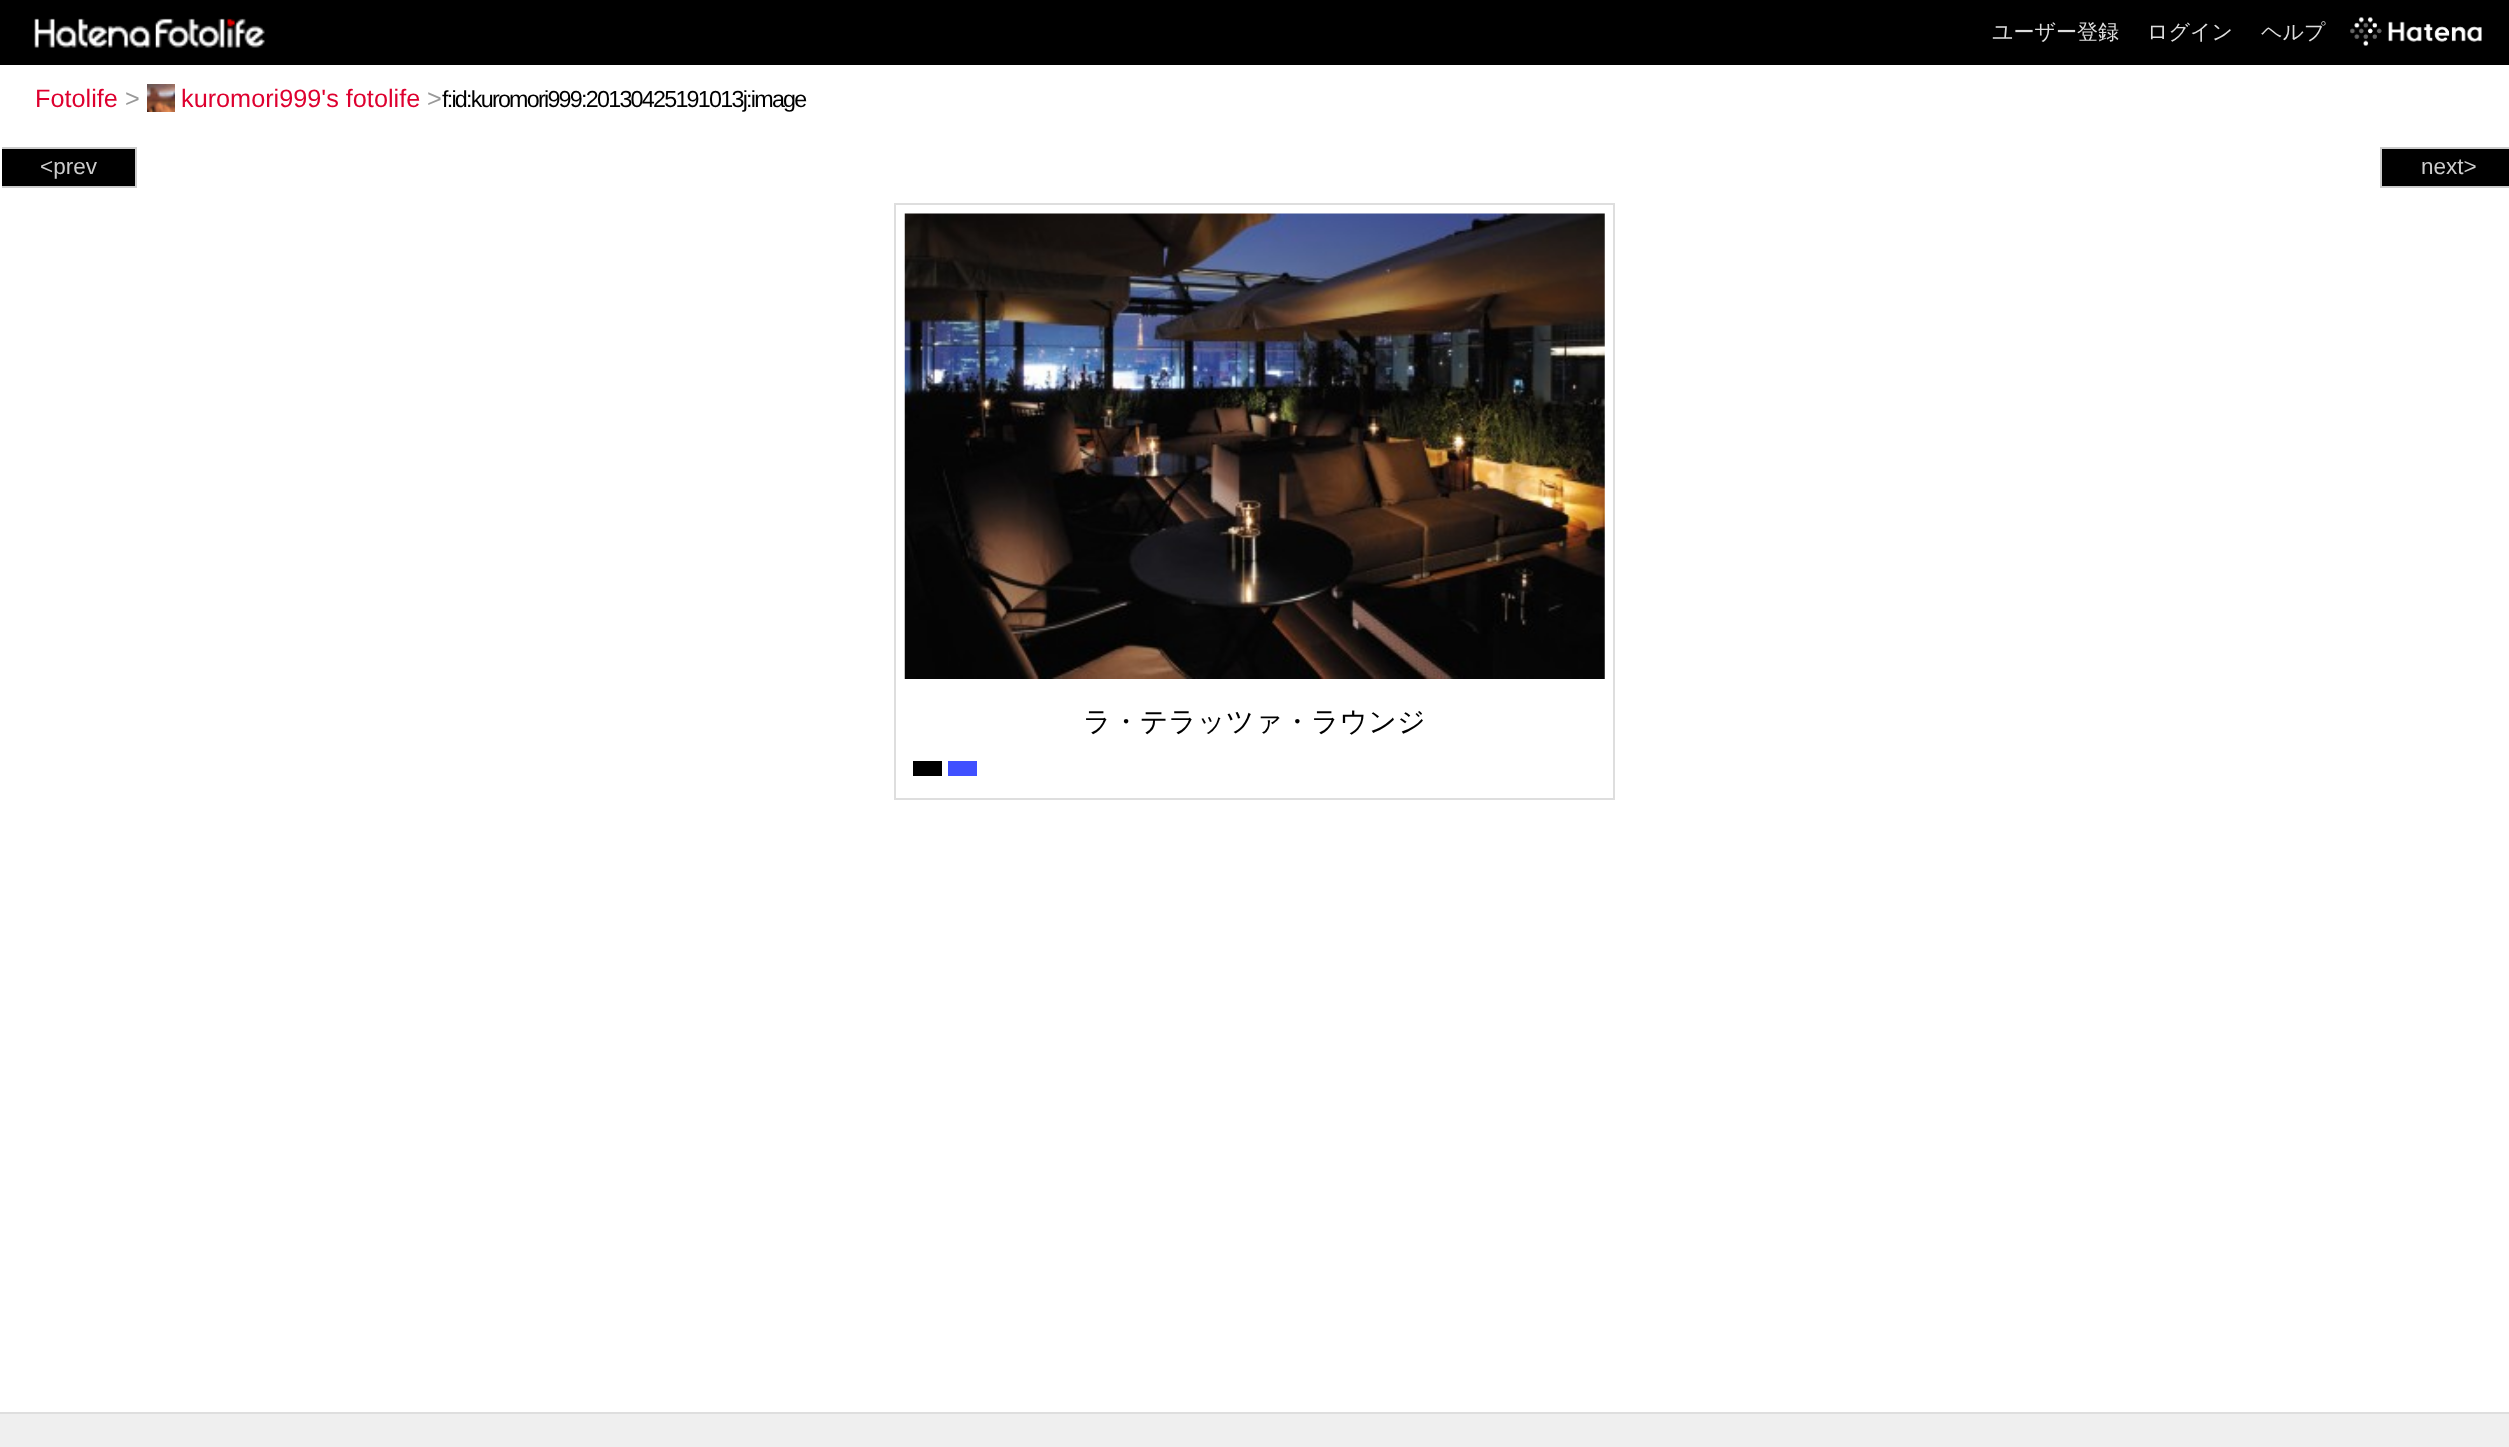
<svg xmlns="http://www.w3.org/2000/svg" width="2509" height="1447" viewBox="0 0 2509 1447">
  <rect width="100%" height="100%" fill="#efefef"/>
  <rect x="0" y="0" width="2509" height="65" fill="#000000"/>
  <image x="34" y="18" width="117" height="30" href="img1.png"/>
  <image x="155" y="18" width="110" height="30" href="img2.png"/>
  <text x="1992" y="39" font-family="WenQuanYi Zen Hei" font-size="21" font-weight="500" fill="#dddddd">ユーザー登録</text>
  <text x="2147" y="39" font-family="WenQuanYi Zen Hei" font-size="21" font-weight="500" fill="#dddddd">ログイン</text>
  <text x="2261" y="39" font-family="WenQuanYi Zen Hei" font-size="21" font-weight="500" fill="#dddddd">ヘルプ</text>
  <image x="2350" y="17" width="132" height="29" href="img3.png"/>
  <rect x="0" y="65" width="2509" height="1347" fill="#ffffff"/>
  <text x="35" y="107" font-family="Liberation Sans" font-size="25.25" fill="#de002f">Fotolife</text>
  <text x="125" y="107" font-family="Liberation Sans" font-size="25.25" fill="#999999">&gt;</text>
  <image x="147" y="84" width="28" height="28" href="img4.png"/>
  <text x="181" y="107" font-family="Liberation Sans" font-size="25.25" fill="#de002f">kuromori999's fotolife</text>
  <text x="427" y="107" font-family="Liberation Sans" font-size="25.25" fill="#999999">&gt;</text>
  <text x="442" y="107" font-family="Liberation Sans" font-size="23.3" letter-spacing="-1.75" fill="#000000">f:id:kuromori999:20130425191013j:image</text>
  <rect x="0" y="1412" width="2509" height="2" fill="#dedede"/>
  <rect x="2" y="149" width="133" height="37" fill="#000000"/>
  <rect x="2" y="147" width="135" height="2" fill="#cccccc"/>
  <rect x="135" y="147" width="2" height="40" fill="#cccccc"/>
  <rect x="2" y="186" width="135" height="2" fill="#cccccc"/>
  <text x="40" y="174" font-family="Liberation Sans" font-size="22.5" fill="#cccccc">&lt;prev</text>
  <rect x="2382" y="149" width="127" height="37" fill="#000000"/>
  <rect x="2380" y="147" width="129" height="2" fill="#cccccc"/>
  <rect x="2380" y="186" width="129" height="2" fill="#cccccc"/>
  <rect x="2380" y="147" width="2" height="40" fill="#cccccc"/>
  <text x="2421" y="174" font-family="Liberation Sans" font-size="22.5" fill="#cccccc">next&gt;</text>
  <rect x="895" y="204" width="719" height="595" fill="none" stroke="#dedede" stroke-width="2"/>
  <image x="904" y="213" width="701" height="466" href="img5.png"/>
  <text x="1083" y="731" font-family="WenQuanYi Zen Hei" font-size="28" font-weight="500" fill="#000000">ラ・テラッツァ・ラウンジ</text>
  <rect x="913" y="761" width="29" height="15" fill="#000000"/>
  <rect x="948" y="761" width="29" height="15" fill="#4050ff"/>
</svg>
